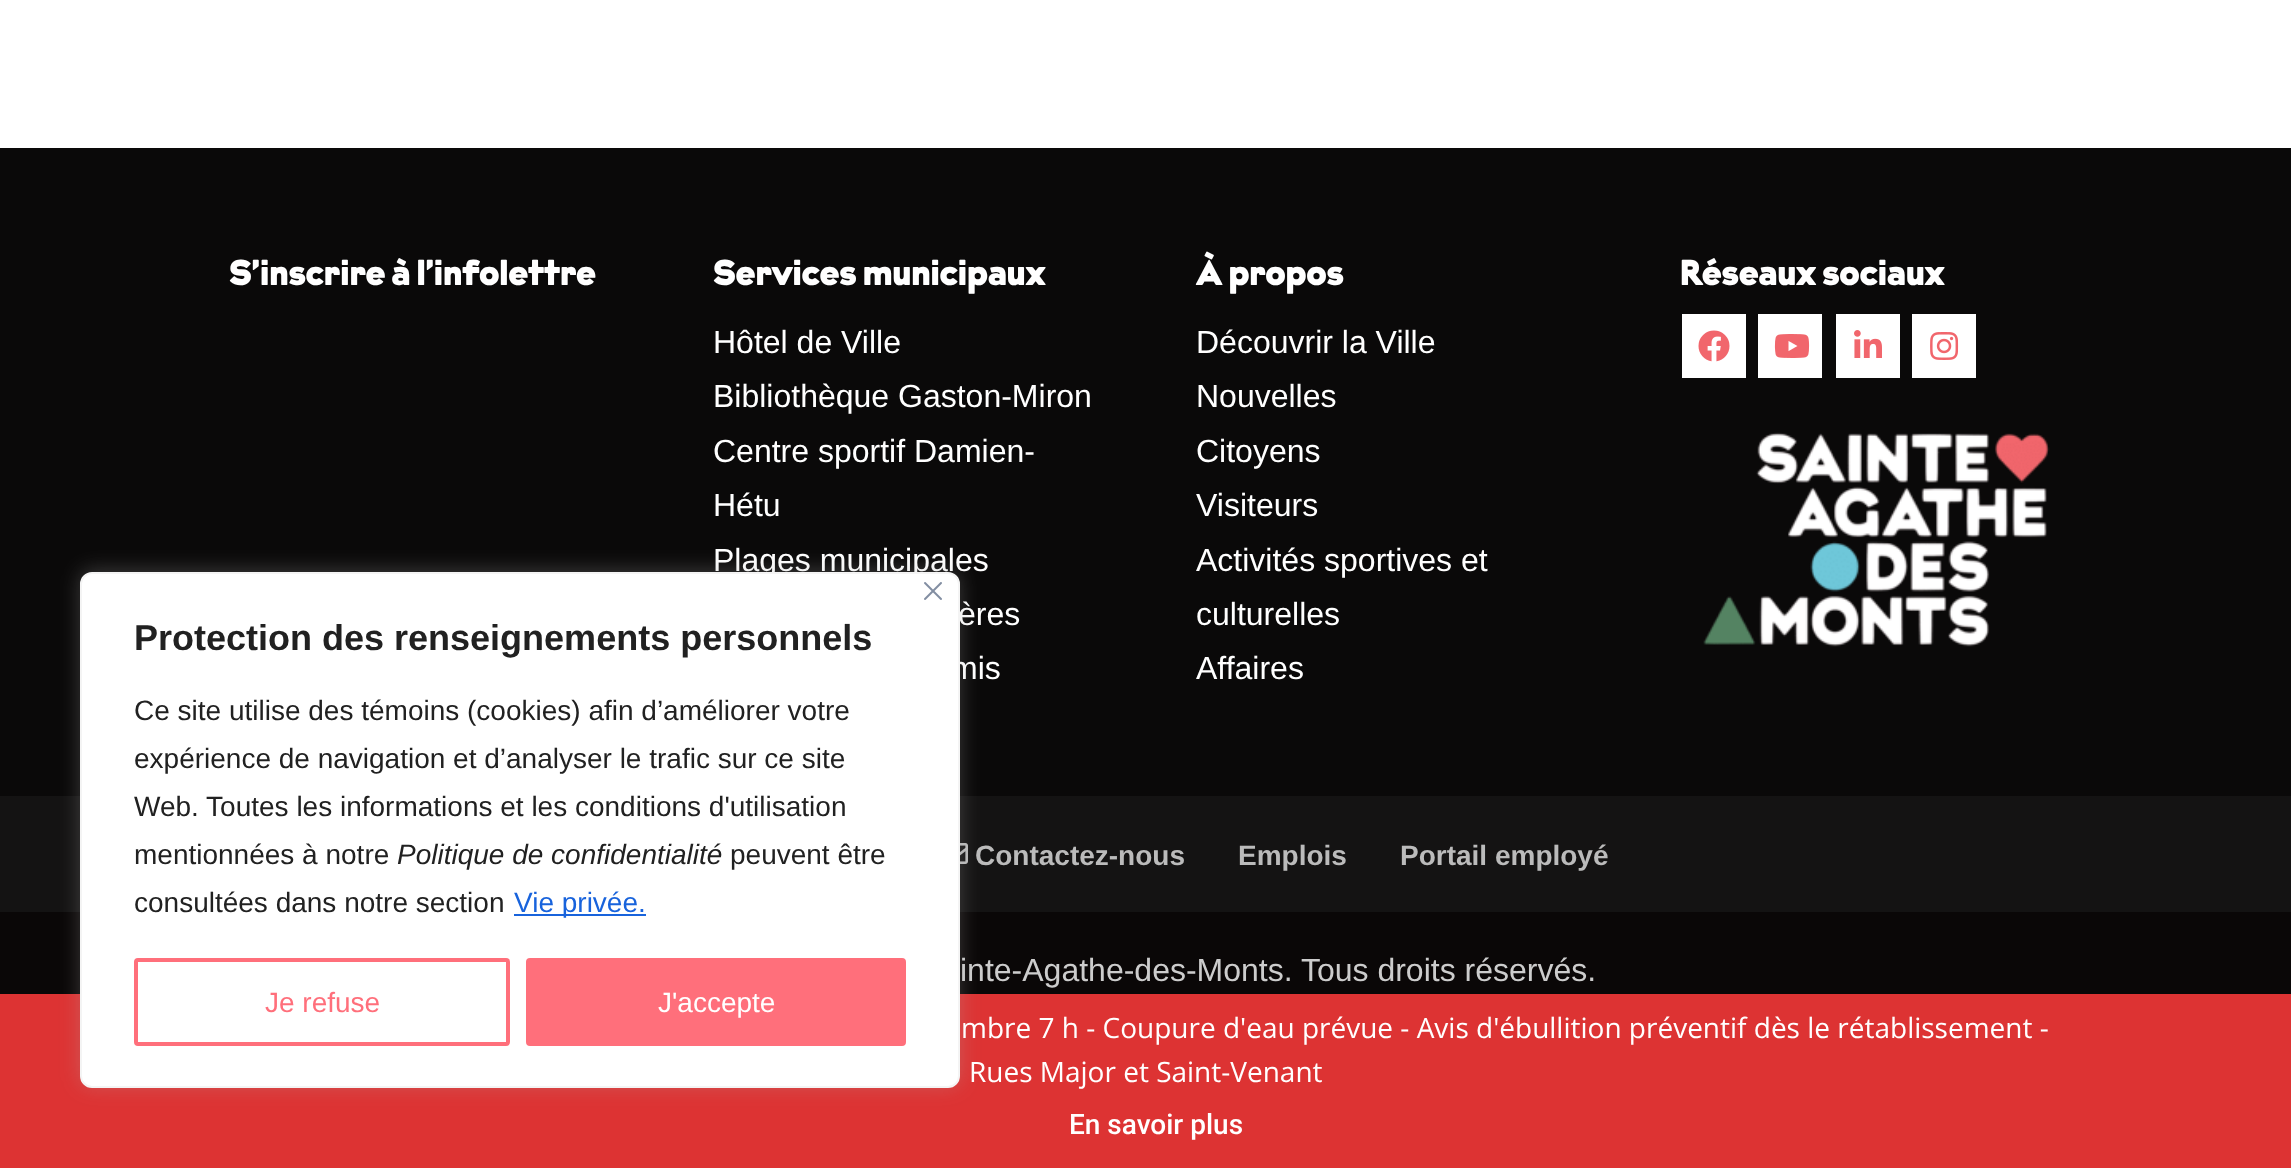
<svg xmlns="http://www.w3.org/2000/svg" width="2291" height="1168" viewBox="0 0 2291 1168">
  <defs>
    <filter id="blur1" x="-50%" y="-200%" width="200%" height="500%"><feGaussianBlur stdDeviation="10"/></filter>
  </defs>
  <rect width="100%" height="100%" fill="#ffffff"/>
  <rect x="0" y="148" width="2291" height="648" fill="#0a0909"/>
  <text x="229" y="285" font-family="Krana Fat" font-size="36" font-weight="900" fill="#ffffff">S’inscrire à l’infolettre</text>
  <text x="713" y="285" font-family="Krana Fat" font-size="36" font-weight="900" fill="#ffffff">Services municipaux</text>
  <text x="713" y="353" font-family="Liberation Sans" font-size="32" fill="#ffffff">Hôtel de Ville</text>
  <text x="713" y="407" font-family="Liberation Sans" font-size="32" fill="#ffffff">Bibliothèque Gaston-Miron</text>
  <text x="713" y="462" font-family="Liberation Sans" font-size="32" fill="#ffffff">Centre sportif Damien-</text>
  <text x="713" y="516" font-family="Liberation Sans" font-size="32" fill="#ffffff">Hétu</text>
  <text x="713" y="571" font-family="Liberation Sans" font-size="32" fill="#ffffff">Plages municipales</text>
  <text x="958" y="625" font-family="Liberation Sans" font-size="32" fill="#ffffff">ères</text>
  <text x="951" y="679" font-family="Liberation Sans" font-size="32" fill="#ffffff">mis</text>
  <text x="1196" y="285" font-family="Krana Fat" font-size="36" font-weight="900" fill="#ffffff">À propos</text>
  <text x="1196" y="353" font-family="Liberation Sans" font-size="32" fill="#ffffff">Découvrir la Ville</text>
  <text x="1196" y="407" font-family="Liberation Sans" font-size="32" fill="#ffffff">Nouvelles</text>
  <text x="1196" y="462" font-family="Liberation Sans" font-size="32" fill="#ffffff">Citoyens</text>
  <text x="1196" y="516" font-family="Liberation Sans" font-size="32" fill="#ffffff">Visiteurs</text>
  <text x="1196" y="571" font-family="Liberation Sans" font-size="32" fill="#ffffff">Activités sportives et</text>
  <text x="1196" y="625" font-family="Liberation Sans" font-size="32" fill="#ffffff">culturelles</text>
  <text x="1196" y="679" font-family="Liberation Sans" font-size="32" fill="#ffffff">Affaires</text>
  <text x="1680" y="285" font-family="Krana Fat" font-size="36" font-weight="900" fill="#ffffff">Réseaux sociaux</text>
  <rect x="1682" y="314" width="64" height="64" fill="#ffffff"/>
  <image x="1698" y="330" width="32" height="32" href="img1.png"/>
  <rect x="1758" y="314" width="64" height="64" fill="#ffffff"/>
  <image x="1774" y="334" width="36" height="24" href="img2.png"/>
  <rect x="1836" y="314" width="64" height="64" fill="#ffffff"/>
  <image x="1854" y="330" width="28" height="28" href="img3.png"/>
  <rect x="1912" y="314" width="64" height="64" fill="#ffffff"/>
  <image x="1930" y="332" width="29" height="28" href="img4.png"/>
  <image x="1703" y="432" width="347" height="215" href="img5.png"/>
  <rect x="0" y="796" width="2291" height="116" fill="#141313"/>
  <image x="960" y="843" width="8" height="21" href="img6.png"/>
  <text x="975" y="865" font-family="Liberation Sans" font-size="28" font-weight="bold" fill="#bbbbbb">Contactez-nous</text>
  <text x="1238" y="865" font-family="Liberation Sans" font-size="28" font-weight="bold" fill="#bbbbbb">Emplois</text>
  <text x="1400" y="865" font-family="Liberation Sans" font-size="28" font-weight="bold" fill="#bbbbbb">Portail employé</text>
  <rect x="0" y="912" width="2291" height="82" fill="#0a0707"/>
  <text x="960" y="981" font-family="Liberation Sans" font-size="32" fill="#cccccc">inte-Agathe-des-Monts. Tous droits réservés.</text>
  <rect x="0" y="994" width="2291" height="174" fill="#dd3333"/>
  <rect x="80" y="570" width="880" height="516" rx="12" fill="#acabab" fill-opacity="0.3" filter="url(#blur1)"/>
  <rect x="81" y="573" width="878" height="514" rx="11" fill="#ffffff" stroke="#f4f4f4" stroke-width="2"/>
  <image x="924" y="582" width="18" height="18" href="img7.png"/>
  <text x="134" y="650" font-family="Liberation Sans" font-size="36" font-weight="bold" fill="#212121">Protection des renseignements personnels</text>
  <text x="134" y="720" font-family="Liberation Sans" font-size="28" fill="#212121">Ce site utilise des témoins (cookies) afin d’améliorer votre</text>
  <text x="134" y="768" font-family="Liberation Sans" font-size="28" fill="#212121">expérience de navigation et d’analyser le trafic sur ce site</text>
  <text x="134" y="816" font-family="Liberation Sans" font-size="28" fill="#212121">Web. Toutes les informations et les conditions d'utilisation</text>
  <text x="134" y="864" font-family="Liberation Sans" font-size="28" fill="#212121">mentionnées à notre</text>
  <text x="397" y="864" font-family="Liberation Sans" font-size="28" font-style="italic" fill="#212121">Politique de confidentialité</text>
  <text x="730" y="864" font-family="Liberation Sans" font-size="28" fill="#212121">peuvent être</text>
  <text x="134" y="912" font-family="Liberation Sans" font-size="28" fill="#212121">consultées dans notre section</text>
  <rect x="514" y="914" width="132" height="2" fill="#1863dc"/>
  <text x="514" y="912" font-family="Liberation Sans" font-size="28" fill="#1863dc">Vie privée.</text>
  <rect x="136" y="960" width="372" height="84" rx="2" fill="none" stroke="#ff6f7b" stroke-width="4"/>
  <text x="265" y="1012" font-family="Liberation Sans" font-size="28" fill="#ff6f7b">Je refuse</text>
  <rect x="528" y="960" width="376" height="84" rx="2" fill="#ff6f7b" stroke="#ff6f7b" stroke-width="4"/>
  <text x="658" y="1012" font-family="Liberation Sans" font-size="28" fill="#ffffff">J'accepte</text>
  <text x="961" y="1038" font-family="Open Sans" font-size="28" fill="#ffffff">mbre 7 h - Coupure d'eau prévue - Avis d'ébullition préventif dès le rétablissement -</text>
  <text x="969" y="1082" font-family="Open Sans" font-size="28" fill="#ffffff">Rues Major et Saint-Venant</text>
  <text x="1069" y="1134" font-family="Roboto" font-size="28" font-weight="500" fill="#ffffff">En savoir plus</text>
</svg>
